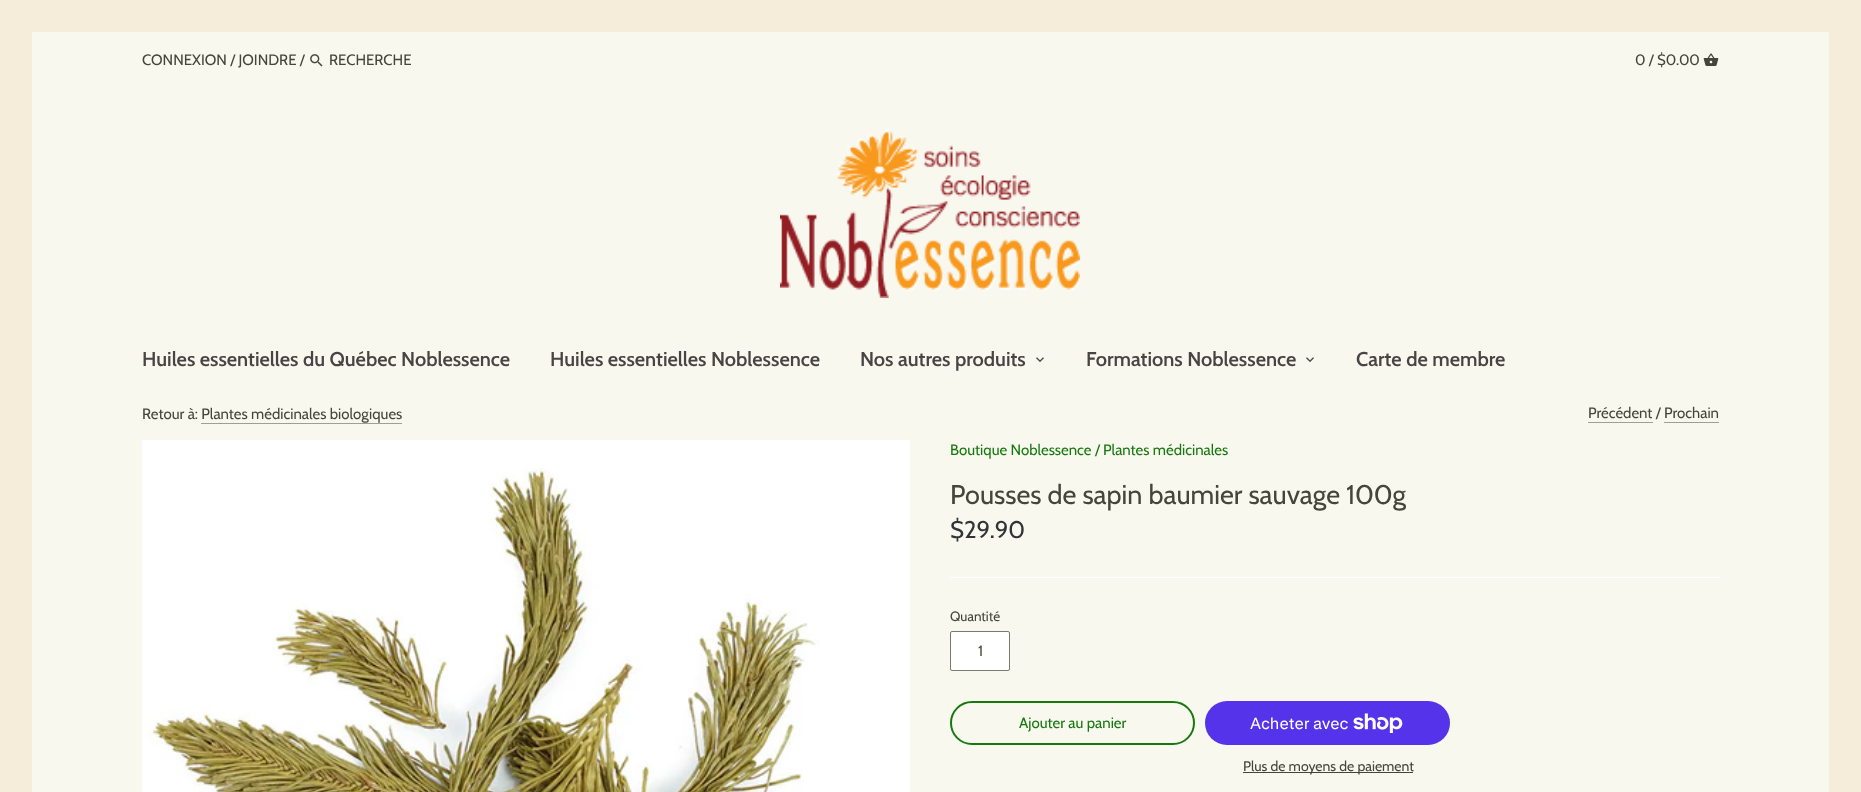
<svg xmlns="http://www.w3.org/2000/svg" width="1861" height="792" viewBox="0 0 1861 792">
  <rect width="100%" height="100%" fill="#f9f8ef"/>
  <rect x="16" y="16" width="1829" height="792" fill="none" stroke="#f5edd9" stroke-width="32"/>
  <text x="142" y="65" font-family="Cabin" font-size="15" fill="#444639">CONNEXION / JOINDRE /</text>
  <image x="310" y="54" width="13" height="13" href="img1.png"/>
  <text x="329" y="65" font-family="Cabin" font-size="15" fill="#444639">RECHERCHE</text>
  <text x="1635" y="65" font-family="Cabin" font-size="15" fill="#444639">0 / $0.00</text>
  <image x="1703" y="53" width="16" height="13" href="img2.png"/>
  <image x="780" y="129" width="300" height="169" href="img3.png"/>
  <text x="142" y="366" font-family="Cabin" font-size="20" font-weight="600" fill="#484444">Huiles essentielles du Québec Noblessence</text>
  <text x="550" y="366" font-family="Cabin" font-size="20" font-weight="600" fill="#484444">Huiles essentielles Noblessence</text>
  <text x="860" y="366" font-family="Cabin" font-size="20" font-weight="600" fill="#484444">Nos autres produits</text>
  <image x="1036" y="357" width="8" height="5" href="img4.png"/>
  <text x="1086" y="366" font-family="Cabin" font-size="20" font-weight="600" fill="#484444">Formations Noblessence</text>
  <image x="1306" y="357" width="8" height="5" href="img4.png"/>
  <text x="1356" y="366" font-family="Cabin" font-size="20" font-weight="600" fill="#484444">Carte de membre</text>
  <text x="142" y="419" font-family="Cabin" font-size="15" fill="#444639">Retour à: Plantes médicinales biologiques</text>
  <rect x="201" y="423" width="201" height="1" fill="#9f9f94"/>
  <text x="1588" y="418" font-family="Cabin" font-size="15" fill="#444639">Précédent / Prochain</text>
  <rect x="1588" y="422" width="65" height="1" fill="#9f9f94"/>
  <rect x="1664" y="422" width="55" height="1" fill="#9f9f94"/>
  <image x="142" y="440" width="768" height="352" href="img5.png"/>
  <rect x="950" y="577" width="769" height="1" fill="#ffffff"/>
  <text x="950" y="455" font-family="Cabin" font-size="15" fill="#177810">Boutique Noblessence / Plantes médicinales</text>
  <text x="950" y="504" font-family="Cabin" font-size="27" fill="#444639">Pousses de sapin baumier sauvage 100g</text>
  <text x="950" y="538" font-family="Cabin" font-size="24" fill="#303438">$29.90</text>
  <text x="950" y="621" font-family="Cabin" font-size="13.5" fill="#444639">Quantité</text>
  <rect x="950.5" y="631.5" width="59" height="39" rx="1.5" fill="#ffffff" stroke="#7a7b6f"/>
  <text x="978" y="656" font-family="Cabin" font-size="15" fill="#444639">1</text>
  <rect x="951" y="702" width="243" height="42" rx="21" fill="none" stroke="#177810" stroke-width="2"/>
  <text x="1019" y="728" font-family="Cabin" font-size="15" fill="#177810">Ajouter au panier</text>
  <rect x="1205" y="701" width="245" height="44" rx="22" fill="#5433eb"/>
  <text x="1250" y="729" font-family="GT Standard" font-size="16" fill="#ffffff">Acheter avec</text>
  <image x="1353" y="713" width="50" height="20" href="img6.png"/>
  <rect x="1243" y="772" width="170" height="1" fill="#444639"/>
  <text x="1243" y="771" font-family="Cabin" font-size="14" fill="#444639">Plus de moyens de paiement</text>
</svg>
